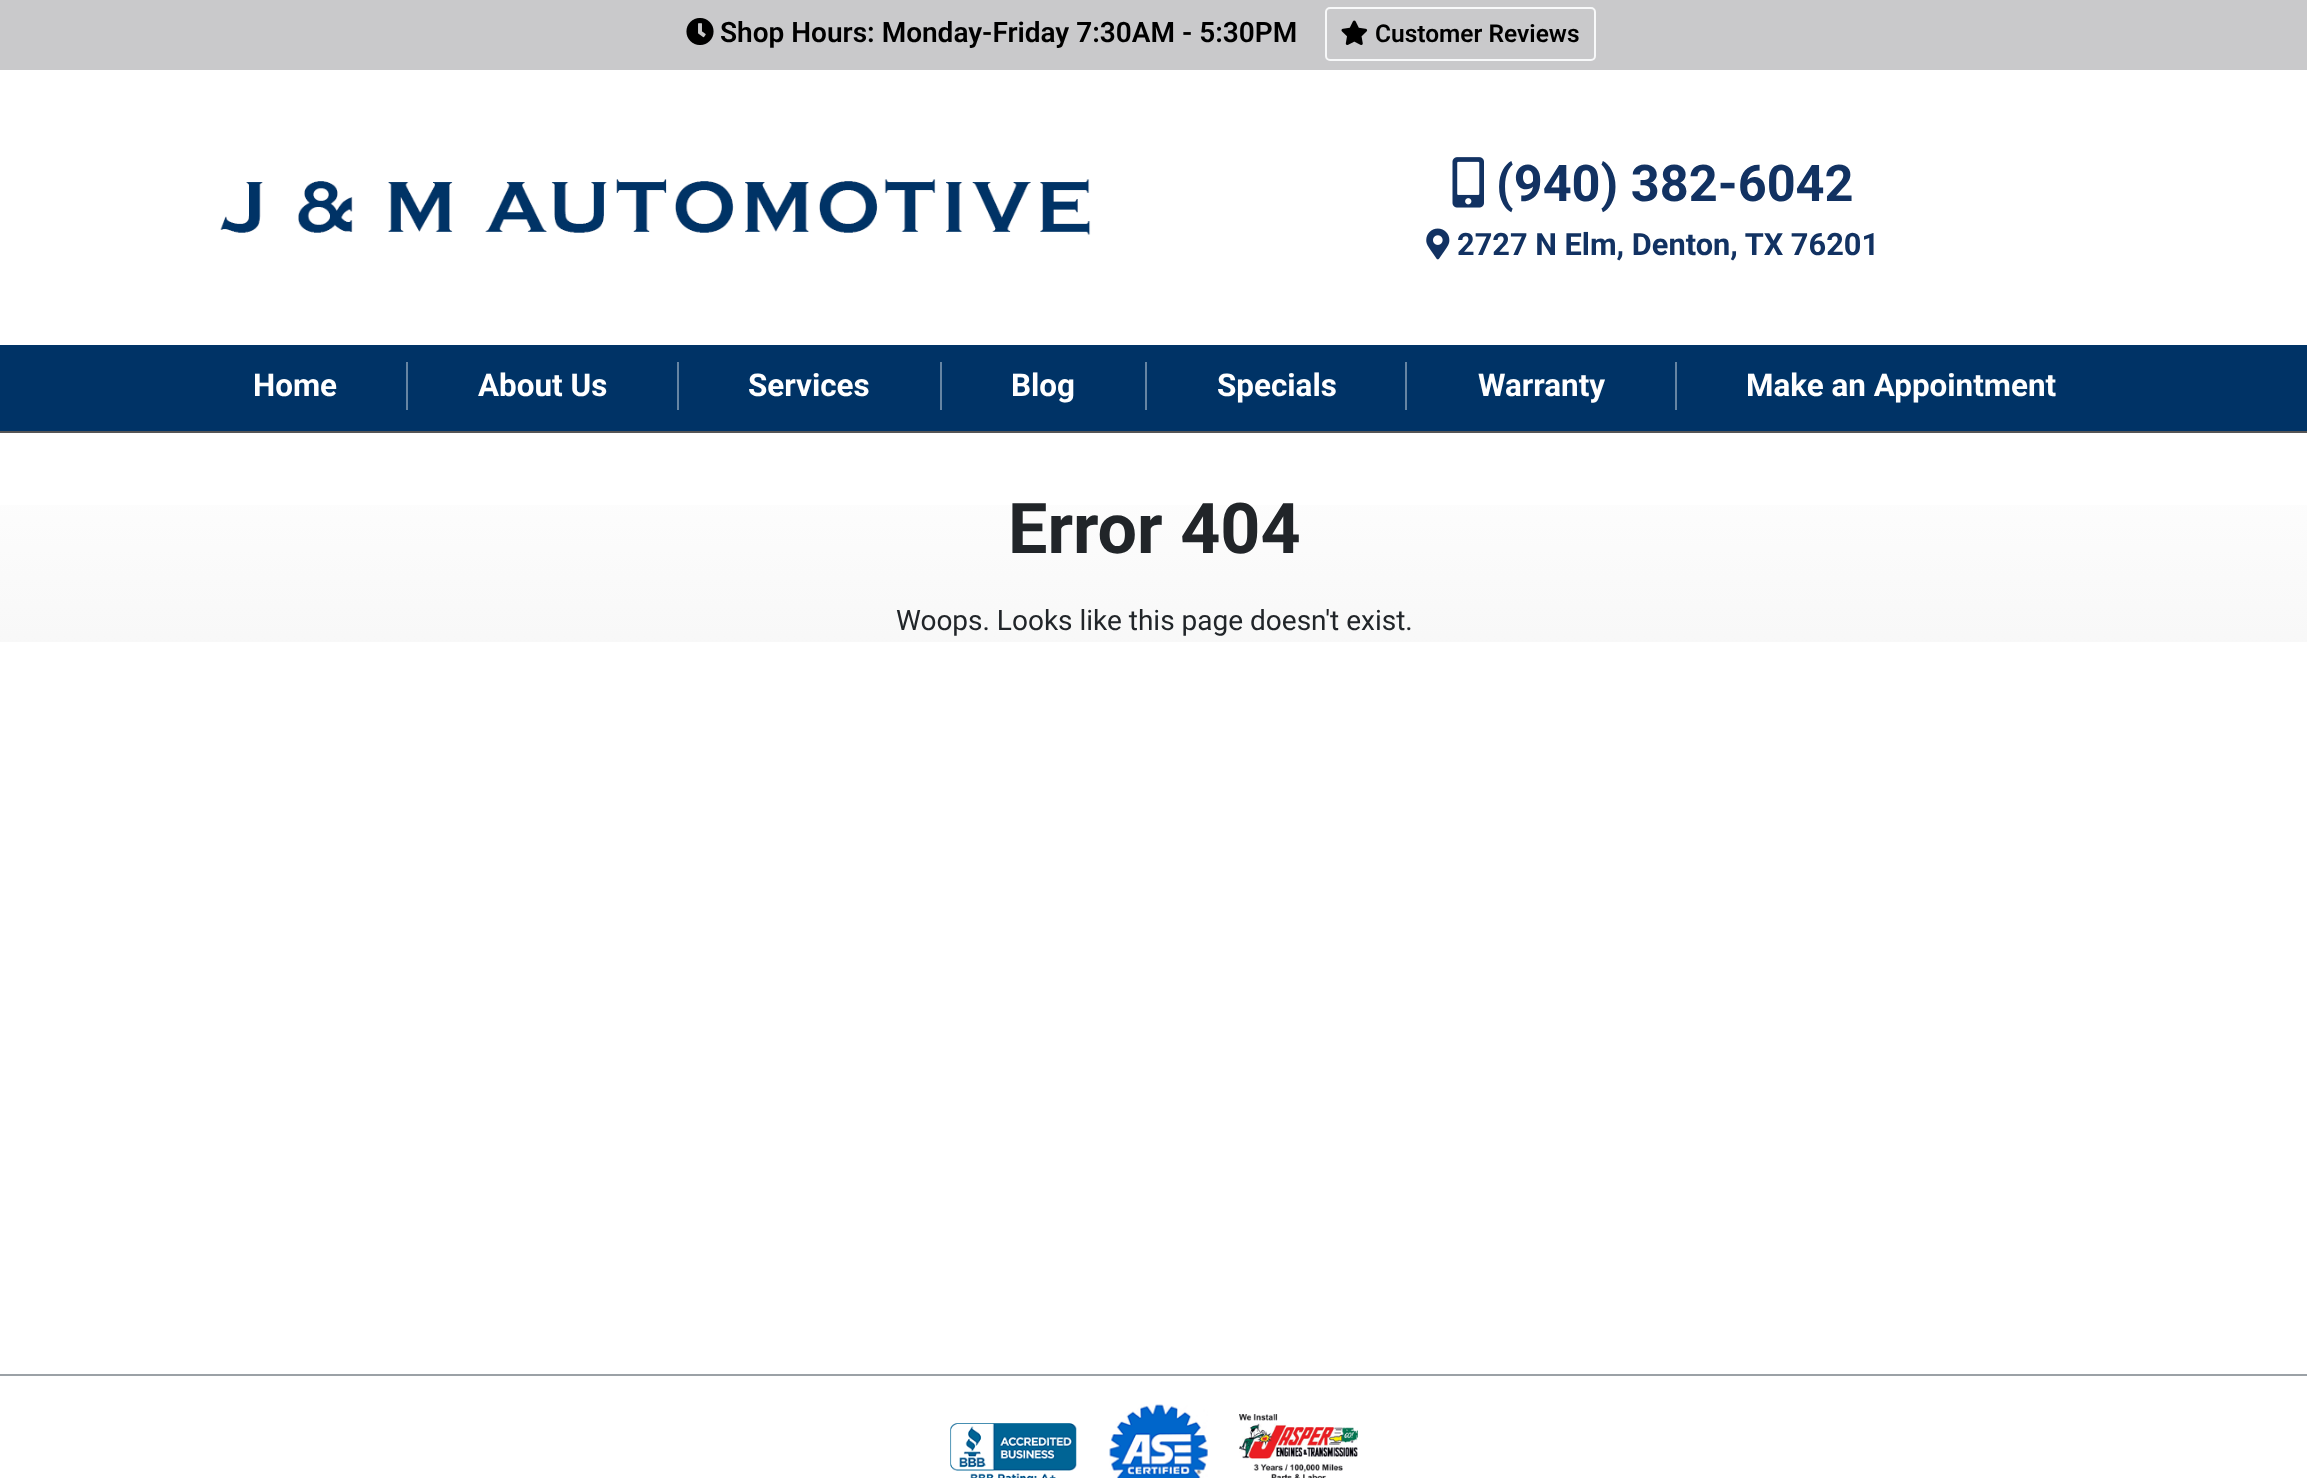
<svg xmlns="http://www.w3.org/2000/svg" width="2307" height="1478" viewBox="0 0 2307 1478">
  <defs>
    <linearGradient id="g1" gradientUnits="userSpaceOnUse" x1="1154" y1="432" x2="1154" y2="1132"><stop offset="0" stop-color="#ffffff"/><stop offset="1" stop-color="#e7e7e7"/></linearGradient>
  </defs>
  <rect width="100%" height="100%" fill="#ffffff"/>
  <rect x="0" y="0" width="2307" height="70" fill="#c9c9cb"/>
  <image x="686" y="18" width="28" height="27" href="img1.png"/>
  <text x="720" y="42" font-family="Roboto" font-size="28" font-weight="600" fill="#000000">Shop Hours: Monday-Friday 7:30AM - 5:30PM</text>
  <rect x="1326" y="8" width="269" height="52" rx="4" fill="none" stroke="#f8f9fa" stroke-width="2"/>
  <image x="1341" y="20" width="27" height="25" href="img2.png"/>
  <text x="1375" y="42" font-family="Roboto" font-size="24.5" font-weight="600" fill="#000000">Customer Reviews</text>
  <image x="220" y="179" width="871" height="56" href="img3.png"/>
  <image x="1452" y="157" width="32" height="51" href="img4.png"/>
  <text x="1496" y="201" font-family="Roboto" font-size="50.5" font-weight="bold" fill="#123262">(940) 382-6042</text>
  <image x="1426" y="228" width="24" height="32" href="img5.png"/>
  <text x="1457" y="255" font-family="Roboto" font-size="30.75" font-weight="bold" fill="#123262">2727 N Elm, Denton, TX 76201</text>
  <rect x="0" y="345" width="2307" height="86" fill="#003366"/>
  <rect x="0" y="431" width="2307" height="2" fill="#555555"/>
  <rect x="406" y="362" width="2" height="48" fill="#6685a3"/>
  <text x="253" y="396" font-family="Roboto" font-size="31.4" font-weight="bold" fill="#ffffff">Home</text>
  <rect x="677" y="362" width="2" height="48" fill="#6685a3"/>
  <text x="478" y="396" font-family="Roboto" font-size="31.4" font-weight="bold" fill="#ffffff">About Us</text>
  <rect x="940" y="362" width="2" height="48" fill="#6685a3"/>
  <text x="748" y="396" font-family="Roboto" font-size="31.4" font-weight="bold" fill="#ffffff">Services</text>
  <rect x="1145" y="362" width="2" height="48" fill="#6685a3"/>
  <text x="1011" y="396" font-family="Roboto" font-size="31.4" font-weight="bold" fill="#ffffff">Blog</text>
  <rect x="1405" y="362" width="2" height="48" fill="#6685a3"/>
  <text x="1217" y="396" font-family="Roboto" font-size="31.4" font-weight="bold" fill="#ffffff">Specials</text>
  <rect x="1675" y="362" width="2" height="48" fill="#6685a3"/>
  <text x="1478" y="396" font-family="Roboto" font-size="31.4" font-weight="bold" fill="#ffffff">Warranty</text>
  <text x="1746" y="396" font-family="Roboto" font-size="31.4" font-weight="bold" fill="#ffffff">Make an Appointment</text>
  <rect x="0" y="505" width="2307" height="137" fill="url(#g1)"/>
  <text x="1008" y="553" font-family="Roboto" font-size="70" font-weight="bold" fill="#212529">Error 404</text>
  <text x="896" y="630" font-family="Roboto" font-size="28" fill="#212529">Woops. Looks like this page doesn't exist.</text>
  <rect x="0" y="1374" width="2307" height="2" fill="#9ba1a6"/>
  <image x="950" y="1423" width="127" height="55" href="img6.png"/>
  <image x="1109" y="1404" width="99" height="74" href="img7.png"/>
  <image x="1239" y="1414" width="119" height="64" href="img8.png"/>
</svg>
